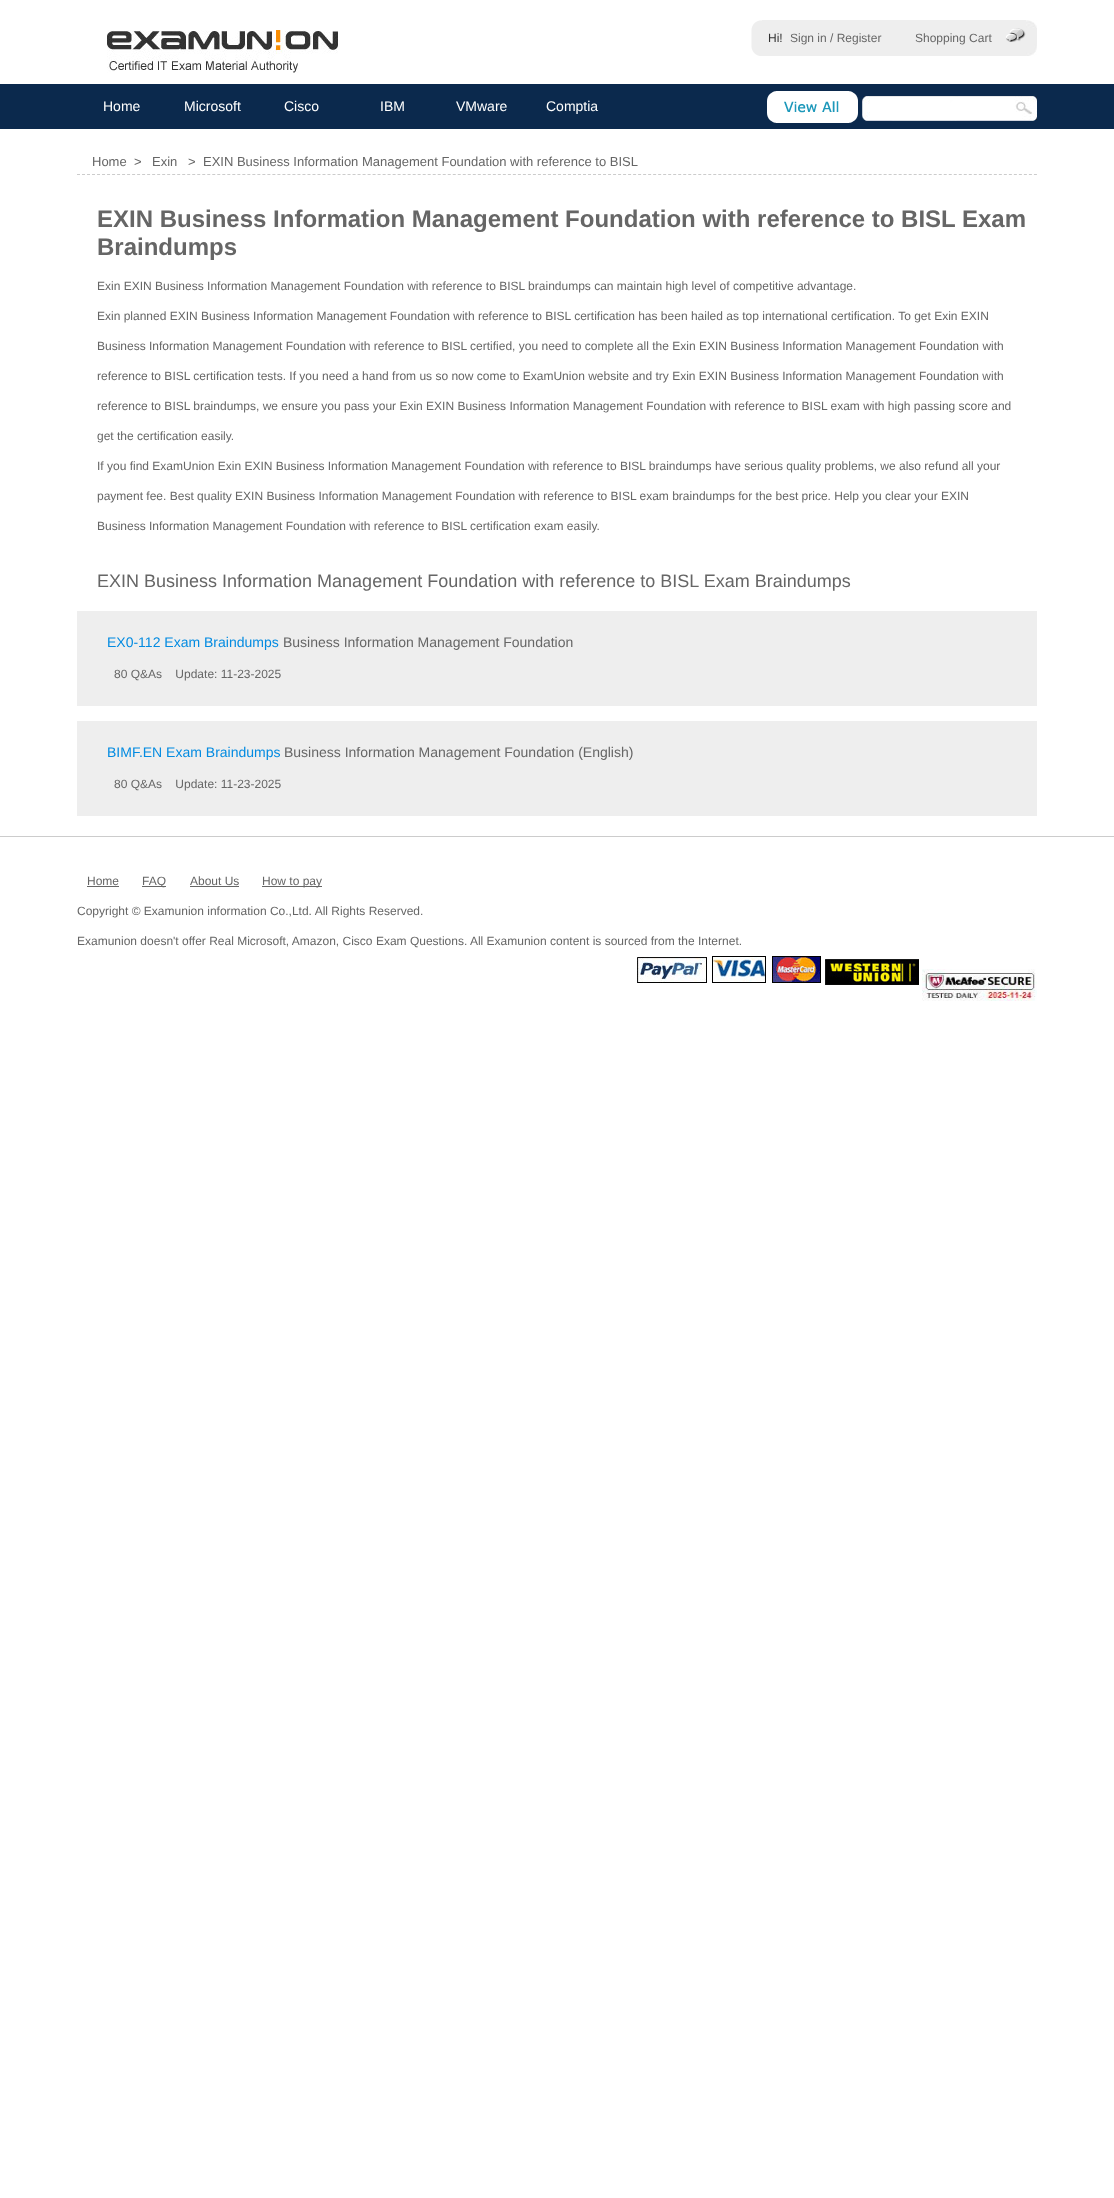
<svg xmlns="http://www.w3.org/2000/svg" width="1114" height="2198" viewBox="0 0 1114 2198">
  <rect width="100%" height="100%" fill="#ffffff"/>
  <image x="107" y="30" width="231" height="43" href="img1.png"/>
  <image x="751" y="20" width="11" height="36" href="img2.png"/>
  <rect x="762" y="20" width="264" height="36" fill="#eeeeee"/>
  <image x="1006" y="28" width="20" height="14" href="img3.png"/>
  <image x="1026" y="20" width="11" height="36" href="img4.png"/>
  <text x="768" y="42" font-family="Liberation Sans" font-size="12" fill="#333333">Hi!</text>
  <text x="790" y="42" font-family="Liberation Sans" font-size="12" fill="#666666">Sign in / Register</text>
  <text x="915" y="42" font-family="Liberation Sans" font-size="12" fill="#666666">Shopping Cart</text>
  <rect x="0" y="84" width="1114" height="45" fill="#0b294d"/>
  <text x="103" y="111" font-family="Liberation Sans" font-size="14" fill="#ffffff">Home</text>
  <text x="184" y="111" font-family="Liberation Sans" font-size="14" fill="#ffffff">Microsoft</text>
  <text x="284" y="111" font-family="Liberation Sans" font-size="14" fill="#ffffff">Cisco</text>
  <text x="380" y="111" font-family="Liberation Sans" font-size="14" fill="#ffffff">IBM</text>
  <text x="456" y="111" font-family="Liberation Sans" font-size="14" fill="#ffffff">VMware</text>
  <text x="546" y="111" font-family="Liberation Sans" font-size="14" fill="#ffffff">Comptia</text>
  <image x="767" y="91" width="91" height="32" href="img5.png"/>
  <image x="862" y="96" width="175" height="25" href="img6.png"/>
  <path d="M77 174.5H1037" fill="none" stroke="#cccccc" stroke-dasharray="3 2.01"/>
  <text x="92" y="166" font-family="Liberation Sans" font-size="13" fill="#666666" xml:space="preserve">Home  &gt;</text>
  <text x="152" y="166" font-family="Liberation Sans" font-size="13" fill="#666666">Exin</text>
  <text x="188" y="166" font-family="Liberation Sans" font-size="13" fill="#666666">&gt;</text>
  <text x="203" y="166" font-family="Liberation Sans" font-size="13" fill="#666666">EXIN Business Information Management Foundation with reference to BISL</text>
  <text x="97" y="227" font-family="Liberation Sans" font-size="24" font-weight="bold" fill="#666666">EXIN Business Information Management Foundation with reference to BISL Exam</text>
  <text x="97" y="255" font-family="Liberation Sans" font-size="24" font-weight="bold" fill="#666666">Braindumps</text>
  <text x="97" y="290" font-family="Liberation Sans" font-size="12" fill="#666666">Exin EXIN Business Information Management Foundation with reference to BISL braindumps can maintain high level of competitive advantage.</text>
  <text x="97" y="320" font-family="Liberation Sans" font-size="12" fill="#666666">Exin planned EXIN Business Information Management Foundation with reference to BISL certification has been hailed as top international certification. To get Exin EXIN</text>
  <text x="97" y="350" font-family="Liberation Sans" font-size="12" fill="#666666">Business Information Management Foundation with reference to BISL certified, you need to complete all the Exin EXIN Business Information Management Foundation with</text>
  <text x="97" y="380" font-family="Liberation Sans" font-size="12" fill="#666666">reference to BISL certification tests. If you need a hand from us so now come to ExamUnion website and try Exin EXIN Business Information Management Foundation with</text>
  <text x="97" y="410" font-family="Liberation Sans" font-size="12" fill="#666666">reference to BISL braindumps, we ensure you pass your Exin EXIN Business Information Management Foundation with reference to BISL exam with high passing score and</text>
  <text x="97" y="440" font-family="Liberation Sans" font-size="12" fill="#666666">get the certification easily.</text>
  <text x="97" y="470" font-family="Liberation Sans" font-size="12" fill="#666666">If you find ExamUnion Exin EXIN Business Information Management Foundation with reference to BISL braindumps have serious quality problems, we also refund all your</text>
  <text x="97" y="500" font-family="Liberation Sans" font-size="12" fill="#666666">payment fee. Best quality EXIN Business Information Management Foundation with reference to BISL exam braindumps for the best price. Help you clear your EXIN</text>
  <text x="97" y="530" font-family="Liberation Sans" font-size="12" fill="#666666">Business Information Management Foundation with reference to BISL certification exam easily.</text>
  <text x="97" y="587" font-family="Liberation Sans" font-size="18" fill="#666666">EXIN Business Information Management Foundation with reference to BISL Exam Braindumps</text>
  <rect x="77" y="611" width="960" height="95" fill="#eeeeee"/>
  <text x="107" y="647" font-family="Liberation Sans" font-size="14" fill="#038be1">EX0-112 Exam Braindumps</text>
  <text x="283" y="647" font-family="Liberation Sans" font-size="14" fill="#666666">Business Information Management Foundation</text>
  <text x="114" y="678" font-family="Liberation Sans" font-size="12" fill="#666666" xml:space="preserve">80 Q&amp;As    Update: 11-23-2025</text>
  <rect x="77" y="721" width="960" height="95" fill="#eeeeee"/>
  <text x="107" y="757" font-family="Liberation Sans" font-size="14" fill="#038be1">BIMF.EN Exam Braindumps</text>
  <text x="284" y="757" font-family="Liberation Sans" font-size="14" fill="#666666">Business Information Management Foundation (English)</text>
  <text x="114" y="788" font-family="Liberation Sans" font-size="12" fill="#666666" xml:space="preserve">80 Q&amp;As    Update: 11-23-2025</text>
  <rect x="0" y="836" width="1114" height="1" fill="#cccccc"/>
  <text x="87" y="885" font-family="Liberation Sans" font-size="12" fill="#666666">Home</text>
  <rect x="87" y="886" width="32" height="1" fill="#666666"/>
  <rect x="142" y="886" width="24" height="1" fill="#666666"/>
  <text x="142" y="885" font-family="Liberation Sans" font-size="12" fill="#666666">FAQ</text>
  <text x="190" y="885" font-family="Liberation Sans" font-size="12" fill="#666666">About Us</text>
  <rect x="190" y="886" width="49" height="1" fill="#666666"/>
  <rect x="262" y="886" width="60" height="1" fill="#666666"/>
  <text x="262" y="885" font-family="Liberation Sans" font-size="12" fill="#666666">How to pay</text>
  <text x="77" y="915" font-family="Liberation Sans" font-size="12" fill="#666666">Copyright © Examunion information Co.,Ltd. All Rights Reserved.</text>
  <text x="77" y="945" font-family="Liberation Sans" font-size="12" fill="#666666">Examunion doesn't offer Real Microsoft, Amazon, Cisco Exam Questions. All Examunion content is sourced from the Internet.</text>
  <image x="637" y="956" width="184" height="27" href="img7.png"/>
  <image x="825" y="959" width="94" height="26" href="img8.png"/>
  <image x="922" y="969" width="115" height="32" href="img9.png"/>
</svg>
